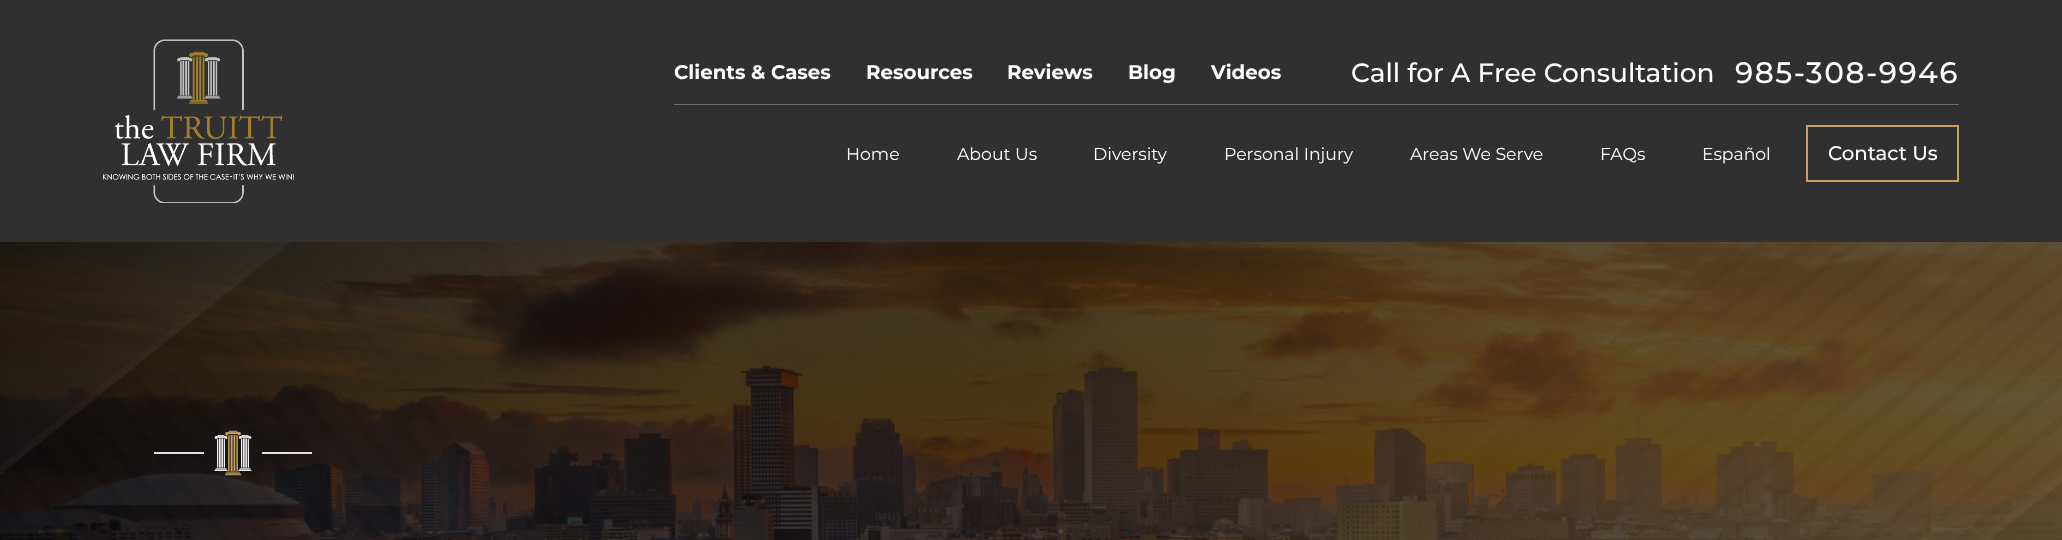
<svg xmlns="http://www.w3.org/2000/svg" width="2062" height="540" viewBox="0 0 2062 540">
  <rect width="100%" height="100%" fill="#ffffff"/>
  <rect x="0" y="0" width="2062" height="242" fill="#303030"/>
  <image x="103" y="39" width="191" height="164" href="img1.png"/>
  <rect x="674" y="104" width="1285" height="1" fill="#6e6e6e"/>
  <text x="674" y="79" font-family="Montserrat" font-size="19.75" font-weight="bold" fill="#ffffff">Clients &amp; Cases</text>
  <text x="866" y="79" font-family="Montserrat" font-size="19.75" font-weight="bold" fill="#ffffff">Resources</text>
  <text x="1007" y="79" font-family="Montserrat" font-size="19.75" font-weight="bold" fill="#ffffff">Reviews</text>
  <text x="1128" y="79" font-family="Montserrat" font-size="19.75" font-weight="bold" fill="#ffffff">Blog</text>
  <text x="1211" y="79" font-family="Montserrat" font-size="19.75" font-weight="bold" fill="#ffffff">Videos</text>
  <text x="1351" y="82" font-family="Montserrat" font-size="26.4" font-weight="500" fill="#ffffff">Call for A Free Consultation</text>
  <text x="1735" y="83" font-family="Montserrat" font-size="29.5" font-weight="500" letter-spacing="1.5" fill="#ffffff">985-308-9946</text>
  <text x="846" y="160" font-family="Montserrat" font-size="17.25" fill="#ffffff">Home</text>
  <text x="957" y="160" font-family="Montserrat" font-size="17.25" fill="#ffffff">About Us</text>
  <text x="1093" y="160" font-family="Montserrat" font-size="17.25" fill="#ffffff">Diversity</text>
  <text x="1224" y="160" font-family="Montserrat" font-size="17.25" fill="#ffffff">Personal Injury</text>
  <text x="1410" y="160" font-family="Montserrat" font-size="17.25" fill="#ffffff">Areas We Serve</text>
  <text x="1600" y="160" font-family="Montserrat" font-size="17.25" fill="#ffffff">FAQs</text>
  <text x="1702" y="160" font-family="Montserrat" font-size="17.25" fill="#ffffff">Español</text>
  <rect x="1807" y="126" width="151" height="55" fill="none" stroke="#c5a25f" stroke-width="2"/>
  <text x="1828" y="160" font-family="Montserrat" font-size="19.75" font-weight="500" fill="#ffffff">Contact Us</text>
  <image x="0" y="242" width="2062" height="298" href="img2.png"/>
  <image x="154" y="430" width="158" height="46" href="img3.png"/>
</svg>
